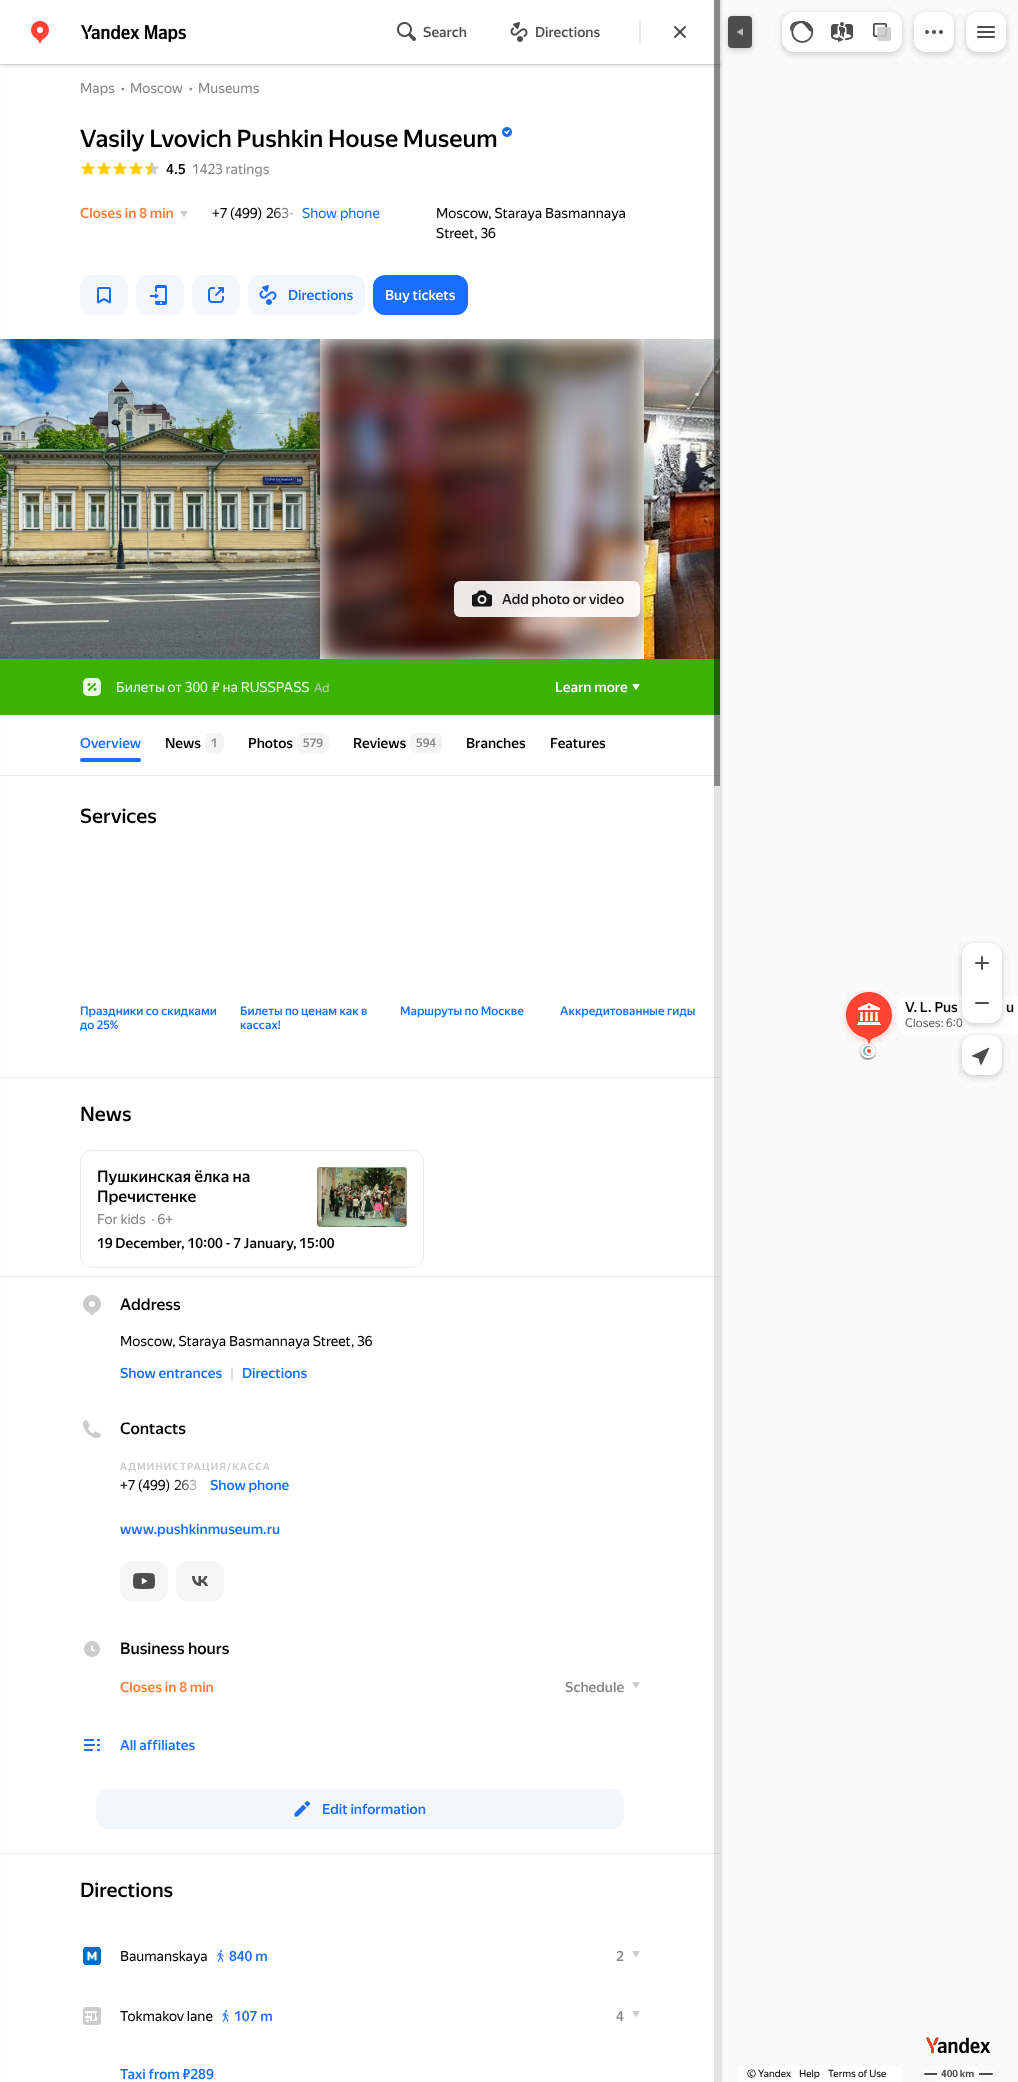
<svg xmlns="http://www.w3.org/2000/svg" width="1018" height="2082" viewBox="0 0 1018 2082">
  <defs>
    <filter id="blur1" x="-50%" y="-200%" width="200%" height="500%"><feGaussianBlur stdDeviation="1"/></filter>
    <filter id="blur2" x="-50%" y="-200%" width="200%" height="500%"><feGaussianBlur stdDeviation="2"/></filter>
    <filter id="blur3" x="-50%" y="-200%" width="200%" height="500%"><feGaussianBlur stdDeviation="3"/></filter>
    <linearGradient id="g1" gradientUnits="userSpaceOnUse" x1="270" y1="213" x2="302" y2="213"><stop offset="0" stop-color="#ffffff" stop-opacity="0"/><stop offset="1" stop-color="#ffffff"/></linearGradient>
    <linearGradient id="g2" gradientUnits="userSpaceOnUse" x1="173" y1="1485" x2="205" y2="1485"><stop offset="0" stop-color="#ffffff" stop-opacity="0"/><stop offset="1" stop-color="#ffffff"/></linearGradient>
  </defs>
  <rect width="100%" height="100%" fill="#ffffff"/>
  <image x="720" y="0" width="298" height="2082" href="img1.png"/>
  <rect x="2" y="0" width="720" height="2082" fill="#000000" fill-opacity="0.1" filter="url(#blur1)"/>
  <rect x="1" y="65" width="719" height="2017" fill="#ffffff"/>
  <rect x="0" y="64" width="720" height="1" fill="#ebebeb"/>
  <rect x="0" y="61" width="720" height="4" fill="#000000" fill-opacity="0.2" filter="url(#blur2)"/>
  <rect x="728" y="18" width="24" height="32" rx="4" fill="#000000" fill-opacity="0.2" filter="url(#blur3)"/>
  <rect x="0" y="0" width="720" height="64" fill="#ffffff"/>
  <image x="31" y="21" width="18" height="23" href="img2.png"/>
  <image x="81" y="25" width="105" height="17" href="img3.png"/>
  <image x="397" y="22" width="19" height="19" href="img4.png"/>
  <text x="423" y="37" font-family="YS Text" font-size="14" font-weight="500" fill="#4d4d4d">Search</text>
  <image x="510" y="22" width="18" height="20" href="img5.png"/>
  <text x="535" y="37" font-family="YS Text" font-size="14" font-weight="500" fill="#4d4d4d">Directions</text>
  <rect x="639" y="20" width="2" height="24" fill="#ebebeb"/>
  <image x="674" y="26" width="12" height="12" href="img6.png"/>
  <text x="80" y="93" font-family="YS Text" font-size="14" fill="#878787">Maps</text>
  <text x="121" y="93" font-family="YS Text" font-size="14" fill="#878787">•</text>
  <text x="130" y="93" font-family="YS Text" font-size="14" fill="#878787">Moscow</text>
  <text x="189" y="93" font-family="YS Text" font-size="14" fill="#878787">•</text>
  <text x="198" y="93" font-family="YS Text" font-size="14" fill="#878787">Museums</text>
  <text x="80" y="147" font-family="YS Text" font-size="24" font-weight="500" fill="#000000">Vasily Lvovich Pushkin House Museum</text>
  <image x="502" y="127" width="10" height="10" href="img7.png"/>
  <image x="81" y="162" width="14" height="13" href="img8.png"/>
  <image x="97" y="162" width="14" height="13" href="img8.png"/>
  <image x="113" y="162" width="14" height="13" href="img8.png"/>
  <image x="129" y="162" width="14" height="13" href="img8.png"/>
  <image x="145" y="162" width="14" height="13" href="img9.png"/>
  <text x="166" y="174" font-family="YS Text" font-size="14" font-weight="500" fill="#000000">4.5</text>
  <text x="192" y="174" font-family="YS Text" font-size="14" fill="#878787">1423 ratings</text>
  <text x="80" y="218" font-family="YS Text" font-size="14" font-weight="500" fill="#ff7732">Closes in 8 min</text>
  <image x="180" y="211" width="8" height="6" href="img10.png"/>
  <text x="212" y="218" font-family="YS Text" font-size="14" fill="#000000">+7 (499) 263-</text>
  <rect x="271" y="207" width="23" height="12" fill="url(#g1)"/>
  <text x="302" y="218" font-family="YS Text" font-size="14" fill="#196dff">Show phone</text>
  <text x="436" y="218" font-family="YS Text" font-size="14" fill="#000000">Moscow, Staraya Basmannaya</text>
  <text x="436" y="238" font-family="YS Text" font-size="14" fill="#000000">Street, 36</text>
  <rect x="80" y="275" width="48" height="40" rx="12" fill="#f3f6fc"/>
  <image x="97" y="287" width="14" height="17" href="img11.png"/>
  <rect x="136" y="275" width="48" height="40" rx="12" fill="#f3f6fc"/>
  <image x="150" y="285" width="17" height="20" href="img12.png"/>
  <rect x="192" y="275" width="48" height="40" rx="12" fill="#f3f6fc"/>
  <image x="208" y="287" width="16" height="16" href="img13.png"/>
  <rect x="248" y="275" width="117" height="40" rx="12" fill="#f3f6fc"/>
  <image x="259" y="285" width="18" height="20" href="img14.png"/>
  <text x="288" y="300" font-family="YS Text" font-size="14" font-weight="500" fill="#196dff">Directions</text>
  <rect x="373" y="275" width="95" height="40" rx="12" fill="#196dff"/>
  <text x="385" y="300" font-family="YS Text" font-size="14" font-weight="500" fill="#ffffff">Buy tickets</text>
  <image x="0" y="339" width="321" height="320" href="img15.png"/>
  <image x="321" y="339" width="322" height="320" href="img16.png"/>
  <image x="643" y="339" width="77" height="320" href="img17.png"/>
  <rect x="454" y="581" width="186" height="36" rx="6" fill="#ffffff" fill-opacity="0.9"/>
  <image x="472" y="590" width="20" height="17" href="img18.png"/>
  <text x="502" y="604" font-family="YS Text" font-size="14" font-weight="500" fill="#191818">Add photo or video</text>
  <rect x="0" y="659" width="720" height="56" fill="#3bb300"/>
  <image x="83" y="678" width="18" height="18" href="img19.png"/>
  <text x="116" y="692" font-family="YS Text" font-size="14" fill="#ebf7e6">Билеты от 300 ₽ на RUSSPASS</text>
  <text x="314" y="692" font-family="YS Text" font-size="12" fill="#becab8">Ad</text>
  <text x="555" y="692" font-family="YS Text" font-size="14" font-weight="500" fill="#ffffff">Learn more</text>
  <image x="632" y="684" width="8" height="6" href="img20.png"/>
  <text x="80" y="748" font-family="YS Text" font-size="14" font-weight="500" fill="#196dff">Overview</text>
  <text x="165" y="748" font-family="YS Text" font-size="14" font-weight="500" fill="#000000">News</text>
  <rect x="205" y="733" width="19" height="20" rx="6" fill="#f4f4f4"/>
  <text x="211" y="747" font-family="YS Text" font-size="12" font-weight="500" fill="#878787">1</text>
  <text x="248" y="748" font-family="YS Text" font-size="14" font-weight="500" fill="#000000">Photos</text>
  <rect x="297" y="733" width="32" height="20" rx="6" fill="#f4f4f4"/>
  <text x="303" y="747" font-family="YS Text" font-size="12" font-weight="500" fill="#878787">579</text>
  <text x="353" y="748" font-family="YS Text" font-size="14" font-weight="500" fill="#000000">Reviews</text>
  <rect x="410" y="733" width="32" height="20" rx="6" fill="#f4f4f4"/>
  <text x="416" y="747" font-family="YS Text" font-size="12" font-weight="500" fill="#878787">594</text>
  <text x="466" y="748" font-family="YS Text" font-size="14" font-weight="500" fill="#000000">Branches</text>
  <text x="550" y="748" font-family="YS Text" font-size="14" font-weight="500" fill="#000000">Features</text>
  <rect x="80" y="758" width="61" height="4" rx="2" fill="#196dff"/>
  <rect x="0" y="775" width="720" height="1" fill="#ebebeb"/>
  <text x="80" y="823" font-family="YS Text" font-size="20" font-weight="500" fill="#000000">Services</text>
  <text x="80" y="1015" font-family="YS Text" font-size="12" font-weight="500" fill="#196dff">Праздники со скидками</text>
  <text x="80" y="1029" font-family="YS Text" font-size="12" font-weight="500" fill="#196dff">до 25%</text>
  <text x="240" y="1015" font-family="YS Text" font-size="12" font-weight="500" fill="#196dff">Билеты по ценам как в</text>
  <text x="240" y="1029" font-family="YS Text" font-size="12" font-weight="500" fill="#196dff">кассах!</text>
  <text x="400" y="1015" font-family="YS Text" font-size="12" font-weight="500" fill="#196dff">Маршруты по Москве</text>
  <text x="560" y="1015" font-family="YS Text" font-size="12" font-weight="500" fill="#196dff">Аккредитованные гиды</text>
  <rect x="0" y="1077" width="720" height="1" fill="#ebebeb"/>
  <text x="80" y="1121" font-family="YS Text" font-size="20" font-weight="500" fill="#000000">News</text>
  <rect x="80.5" y="1150.5" width="343" height="117" rx="11.5" fill="none" stroke="#ebebeb"/>
  <text x="97" y="1182" font-family="YS Text" font-size="16" font-weight="500" fill="#000000">Пушкинская ёлка на</text>
  <text x="97" y="1202" font-family="YS Text" font-size="16" font-weight="500" fill="#000000">Пречистенке</text>
  <text x="97" y="1224" font-family="YS Text" font-size="14" fill="#878787" xml:space="preserve">For kids  · 6+</text>
  <image x="317" y="1167" width="90" height="60" href="img21.png"/>
  <rect x="317.5" y="1167.5" width="89" height="59" fill="none" stroke="#000000" stroke-opacity="0.05"/>
  <text x="97" y="1248" font-family="YS Text" font-size="14" font-weight="500" fill="#000000">19 December, 10:00 - 7 January, 15:00</text>
  <rect x="0" y="1276" width="720" height="1" fill="#ebebeb"/>
  <image x="83" y="1295" width="18" height="21" href="img22.png"/>
  <text x="120" y="1310" font-family="YS Text" font-size="16" font-weight="500" fill="#000000">Address</text>
  <text x="120" y="1346" font-family="YS Text" font-size="14" fill="#000000">Moscow, Staraya Basmannaya Street, 36</text>
  <text x="120" y="1378" font-family="YS Text" font-size="14" font-weight="500" fill="#196dff">Show entrances</text>
  <text x="230" y="1378" font-family="YS Text" font-size="14" fill="#cccccc">|</text>
  <text x="242" y="1378" font-family="YS Text" font-size="14" font-weight="500" fill="#196dff">Directions</text>
  <image x="83" y="1420" width="18" height="18" href="img23.png"/>
  <text x="120" y="1434" font-family="YS Text" font-size="16" font-weight="500" fill="#000000">Contacts</text>
  <text x="120" y="1470" font-family="YS Text" font-size="10" font-weight="bold" letter-spacing="1" fill="#cccccc">АДМИНИСТРАЦИЯ/КАССА</text>
  <text x="120" y="1490" font-family="YS Text" font-size="14" fill="#000000">+7 (499) 263</text>
  <rect x="174" y="1479" width="23" height="12" fill="url(#g2)"/>
  <text x="210" y="1490" font-family="YS Text" font-size="14" font-weight="500" fill="#196dff">Show phone</text>
  <text x="120" y="1534" font-family="YS Text" font-size="14" font-weight="500" fill="#196dff">www.pushkinmuseum.ru</text>
  <rect x="120" y="1561" width="48" height="40" rx="12" fill="#f6f6f6"/>
  <image x="133" y="1573" width="22" height="16" href="img24.png"/>
  <rect x="176" y="1561" width="48" height="40" rx="12" fill="#f6f6f6"/>
  <image x="192" y="1576" width="16" height="10" href="img25.png"/>
  <image x="84" y="1641" width="16" height="16" href="img26.png"/>
  <text x="120" y="1654" font-family="YS Text" font-size="16" font-weight="500" fill="#000000">Business hours</text>
  <text x="120" y="1692" font-family="YS Text" font-size="14" font-weight="500" fill="#ff7732">Closes in 8 min</text>
  <text x="565" y="1692" font-family="YS Text" font-size="14" font-weight="500" fill="#878787">Schedule</text>
  <image x="632" y="1682" width="8" height="6" href="img10.png"/>
  <image x="84" y="1739" width="16" height="12" href="img27.png"/>
  <text x="120" y="1750" font-family="YS Text" font-size="14" font-weight="500" fill="#196dff">All affiliates</text>
  <rect x="96" y="1789" width="528" height="40" rx="12" fill="#f3f6fc"/>
  <image x="294" y="1801" width="16" height="16" href="img28.png"/>
  <text x="322" y="1814" font-family="YS Text" font-size="14" font-weight="500" fill="#196dff">Edit information</text>
  <rect x="0" y="1853" width="720" height="1" fill="#ebebeb"/>
  <text x="80" y="1897" font-family="YS Text" font-size="20" font-weight="500" fill="#000000">Directions</text>
  <image x="83" y="1947" width="18" height="18" href="img29.png"/>
  <text x="120" y="1961" font-family="YS Text" font-size="14" fill="#000000">Baumanskaya</text>
  <image x="217" y="1950" width="7" height="12" href="img30.png"/>
  <text x="229" y="1961" font-family="YS Text" font-size="14" font-weight="500" fill="#196dff">840 m</text>
  <text x="616" y="1961" font-family="YS Text" font-size="14" font-weight="500" fill="#878787">2</text>
  <image x="632" y="1951" width="8" height="6" href="img10.png"/>
  <image x="83" y="2007" width="18" height="18" href="img31.png"/>
  <text x="120" y="2021" font-family="YS Text" font-size="14" fill="#000000">Tokmakov lane</text>
  <image x="222" y="2010" width="7" height="12" href="img30.png"/>
  <text x="234" y="2021" font-family="YS Text" font-size="14" font-weight="500" fill="#196dff">107 m</text>
  <text x="616" y="2021" font-family="YS Text" font-size="14" font-weight="500" fill="#878787">4</text>
  <image x="632" y="2011" width="8" height="6" href="img10.png"/>
  <text x="120" y="2079" font-family="YS Text" font-size="14" font-weight="500" fill="#196dff">Taxi from ₽289</text>
  <rect x="714" y="0" width="6" height="2082" fill="#000000" fill-opacity="0.1"/>
  <rect x="714" y="0" width="6" height="786" fill="#000000" fill-opacity="0.4"/>
  <rect x="728" y="16" width="24" height="32" rx="4" fill="#4d4d4d"/>
  <image x="737" y="28" width="6" height="8" href="img32.png"/>
  <rect x="782" y="14" width="120" height="40" rx="12" fill="#000000" fill-opacity="0.2" filter="url(#blur3)"/>
  <path d="M794 12H822V52H794C787.5 52 782 46.5 782 40V24C782 17.5 787.5 12 794 12Z" fill="#ffffff"/>
  <image x="790" y="21" width="24" height="22" href="img33.png"/>
  <rect x="822" y="12" width="40" height="40" fill="#ffffff"/>
  <image x="831" y="22" width="22" height="20" href="img34.png"/>
  <path d="M862 12H890C896.5 12 902 17.5 902 24V40C902 46.5 896.5 52 890 52H862Z" fill="#ffffff"/>
  <image x="873" y="23" width="18" height="18" href="img35.png"/>
  <rect x="914" y="14" width="40" height="40" rx="12" fill="#000000" fill-opacity="0.2" filter="url(#blur3)"/>
  <rect x="914" y="12" width="40" height="40" rx="12" fill="#ffffff"/>
  <image x="925" y="30" width="18" height="4" href="img36.png"/>
  <rect x="966" y="14" width="40" height="40" rx="12" fill="#000000" fill-opacity="0.2" filter="url(#blur3)"/>
  <rect x="966" y="12" width="40" height="40" rx="12" fill="#ffffff"/>
  <image x="977" y="26" width="18" height="12" href="img37.png"/>
  <path d="M905 996H1018V1034H905C901.5 1034 899 1031.5 899 1028V1002C899 998.5 901.5 996 905 996Z" fill="#ffffff" fill-opacity="0.9"/>
  <rect x="962" y="945" width="40" height="80" rx="12" fill="#000000" fill-opacity="0.2" filter="url(#blur3)"/>
  <path d="M974 943H990C996.5 943 1002 948.5 1002 955V983H962V955C962 948.5 967.5 943 974 943Z" fill="#ffffff"/>
  <image x="975" y="956" width="14" height="14" href="img38.png"/>
  <text x="905" y="1027" font-family="YS Text" font-size="12" fill="#666666">Closes: 6:0</text>
  <path d="M962 983H1002V1011C1002 1017.5 996.5 1023 990 1023H974C967.5 1023 962 1017.5 962 1011Z" fill="#ffffff"/>
  <image x="975" y="1002" width="14" height="2" href="img39.png"/>
  <rect x="962" y="1037" width="40" height="40" rx="12" fill="#000000" fill-opacity="0.2" filter="url(#blur3)"/>
  <rect x="962" y="1035" width="40" height="40" rx="12" fill="#ffffff"/>
  <image x="972" y="1047" width="18" height="18" href="img40.png"/>
  <image x="926" y="2037" width="65" height="17" href="img41.png"/>
  <path d="M743 2066H898C900 2066 902 2068 902 2070V2082H739V2070C739 2068 741 2066 743 2066Z" fill="#ffffff"/>
  <text x="747" y="2077" font-family="YS Text" font-size="10" fill="#000000">© Yandex</text>
  <text x="799" y="2077" font-family="YS Text" font-size="10" fill="#000000">Help</text>
  <text x="828" y="2077" font-family="YS Text" font-size="10" fill="#000000">Terms of Use</text>
  <rect x="922" y="2071" width="73" height="6" rx="3" fill="#fdfdfd"/>
  <rect x="924" y="2073" width="69" height="2" rx="1" fill="#4d4d4d"/>
  <path d="M941 2066H975C977 2066 979 2068 979 2070V2082H937V2070C937 2068 939 2066 941 2066Z" fill="#ffffff"/>
  <text x="941" y="2077" font-family="YS Text" font-size="10" font-weight="bold" fill="#4d4d4d">400 km</text>
  <image x="859" y="1044" width="16" height="16" href="img44.png"/>
  <image x="860" y="1044" width="16" height="16" href="img45.png"/>
  <image x="860" y="1044" width="16" height="16" href="img46.png"/>
  <image x="861" y="1044" width="16" height="16" href="img48.png"/>
  <image x="860" y="1044" width="16" height="16" href="img47.png"/>
  <image x="842" y="990" width="54" height="65" href="img42.png"/>
  <image x="857" y="1003" width="24" height="22" href="img43.png"/>
  <text x="905" y="1012" font-family="YS Text" font-size="14" font-weight="500" fill="#000000">V. L. Pus</text>
  <text x="1006" y="1012" font-family="YS Text" font-size="14" font-weight="500" fill="#000000">u</text>
</svg>
